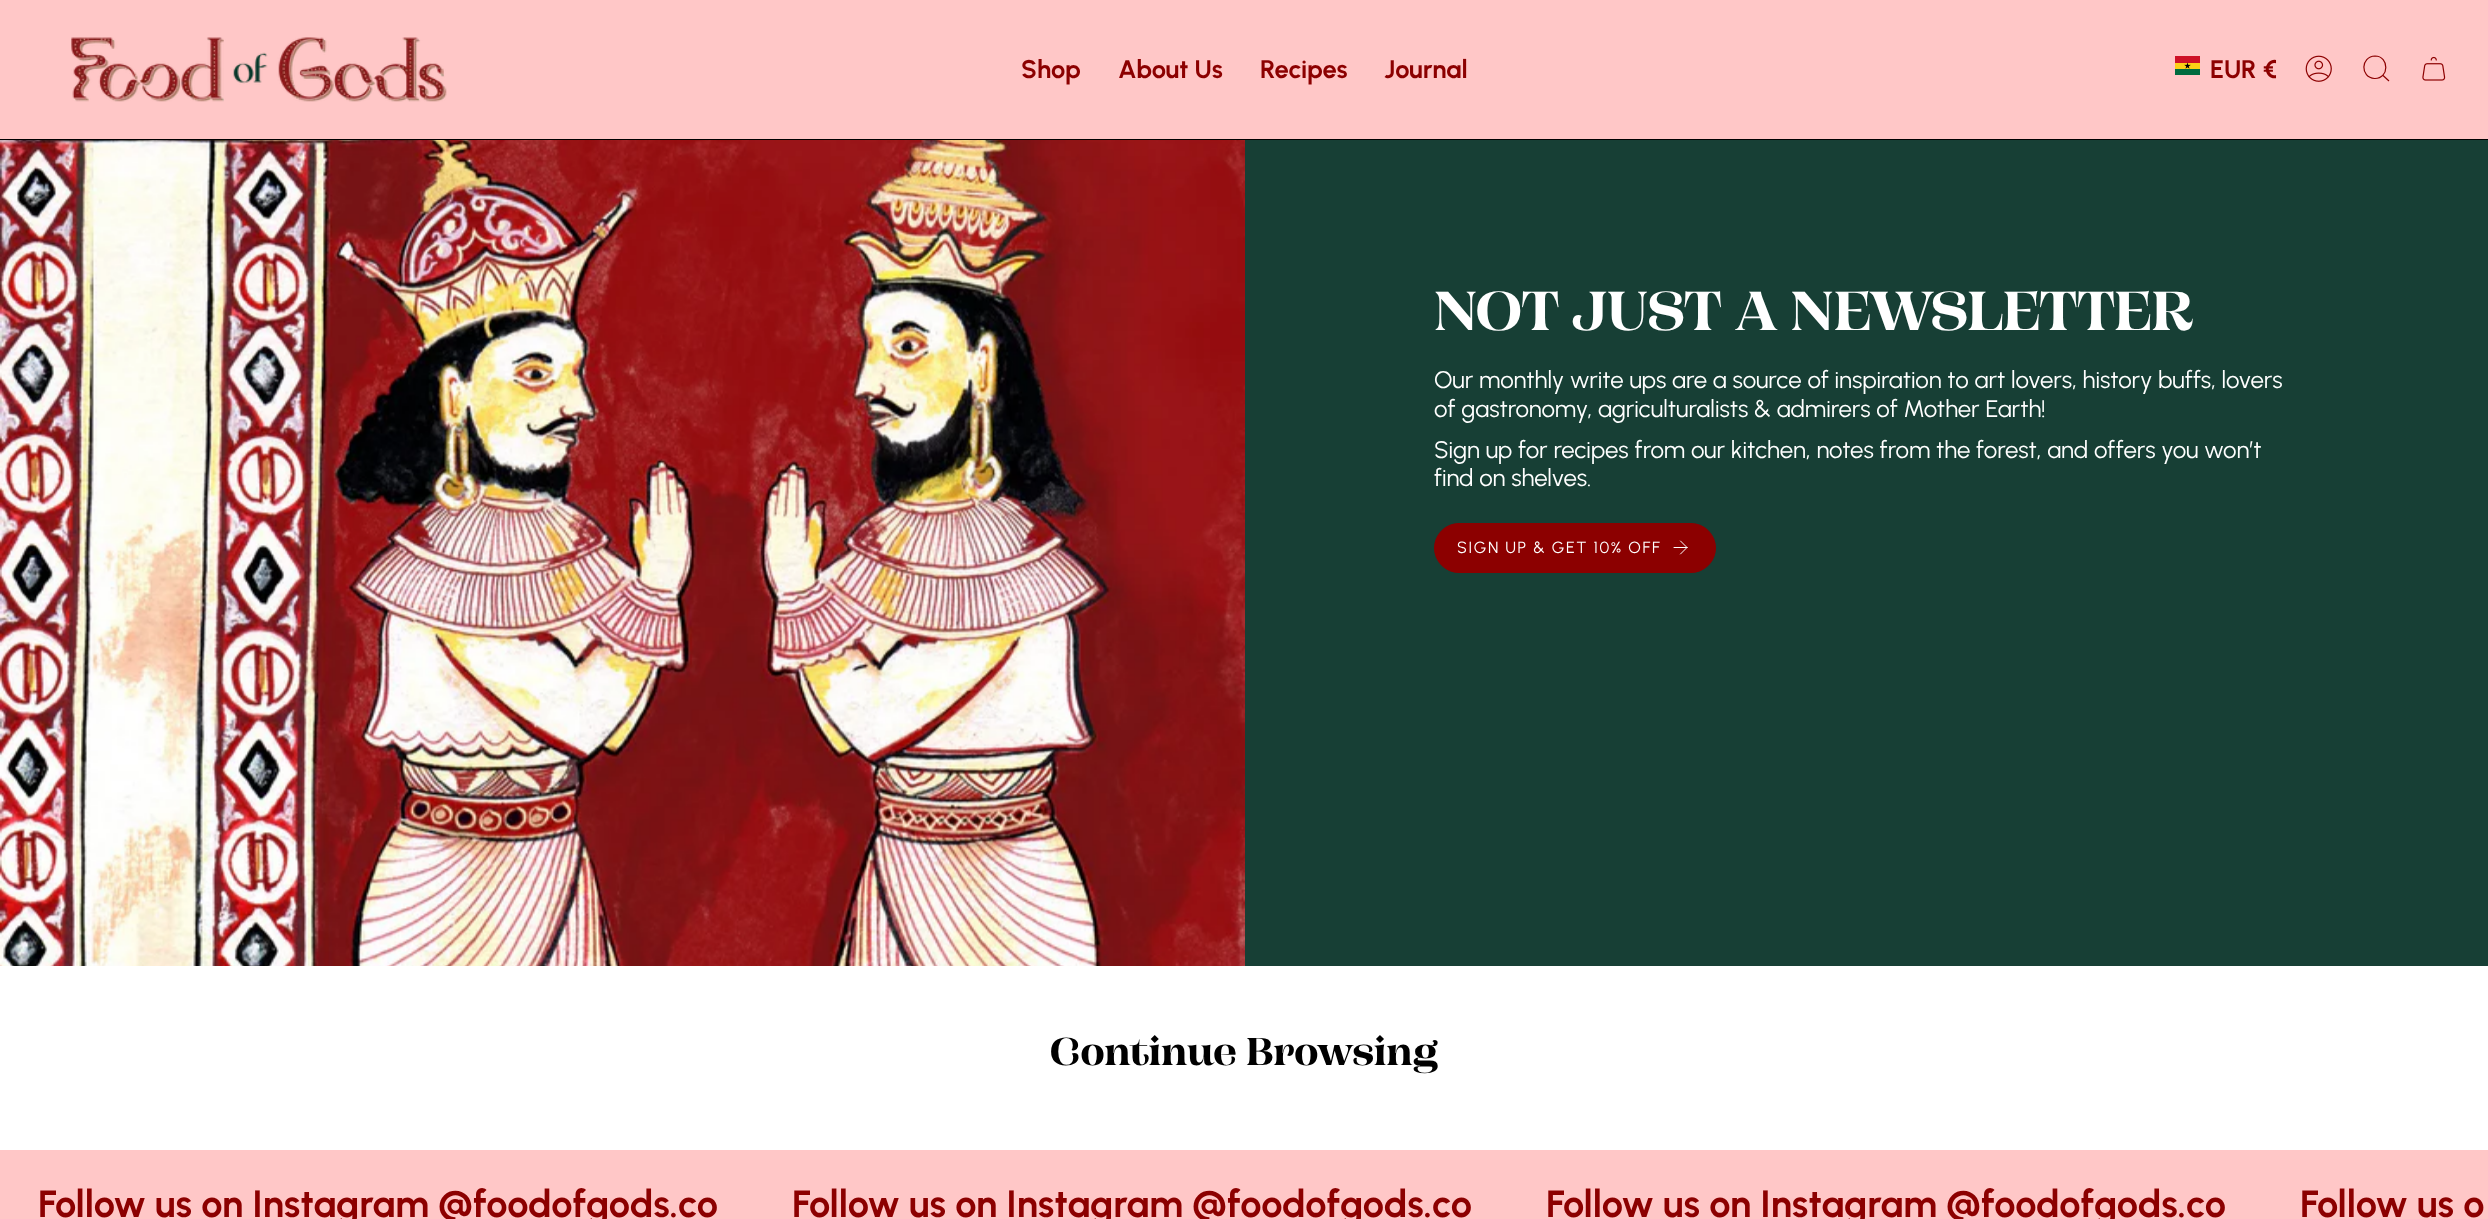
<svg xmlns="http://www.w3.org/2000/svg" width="2488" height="1219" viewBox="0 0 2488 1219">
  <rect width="100%" height="100%" fill="#ffc7c7"/>
  <rect x="0" y="139" width="2488" height="1" fill="#000000"/>
  <image x="71" y="37" width="376" height="65" href="img1.png"/>
  <text x="1021" y="78" font-family="Urbanist" font-size="25.5" font-weight="bold" fill="#8c0000">Shop</text>
  <text x="1118" y="78" font-family="Urbanist" font-size="25.5" font-weight="bold" fill="#8c0000">About Us</text>
  <text x="1260" y="78" font-family="Urbanist" font-size="25.5" font-weight="bold" fill="#8c0000">Recipes</text>
  <text x="1384" y="78" font-family="Urbanist" font-size="25.5" font-weight="bold" fill="#8c0000">Journal</text>
  <image x="2175" y="56" width="25" height="19" href="img2.png"/>
  <text x="2210" y="78" font-family="Urbanist" font-size="25.5" font-weight="bold" fill="#8c0000">EUR €</text>
  <image x="2305" y="55" width="27" height="27" href="img3.png"/>
  <path d="M2375 56C2389.5 56 2389.5 79 2374.5 78.5C2360 77.5 2360.5 56.5 2375 56ZM2382.5 75L2389 81" fill="none" stroke="#8c0000" stroke-width="1.2"/>
  <image x="2422" y="56" width="24" height="25" href="img4.png"/>
  <image x="0" y="140" width="1245" height="826" href="img5.png"/>
  <rect x="1245" y="140" width="1243" height="826" fill="#173f35"/>
  <text x="1434" y="330" font-family="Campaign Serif" font-size="54.6" font-weight="bold" fill="#ffffff">NOT JUST A NEWSLETTER</text>
  <text x="1434" y="388" font-family="Urbanist" font-size="24" fill="#ffffff">Our monthly write ups are a source of inspiration to art lovers, history buffs, lovers</text>
  <text x="1434" y="417" font-family="Urbanist" font-size="24" fill="#ffffff">of gastronomy, agriculturalists &amp; admirers of Mother Earth!</text>
  <text x="1434" y="458" font-family="Urbanist" font-size="24" fill="#ffffff">Sign up for recipes from our kitchen, notes from the forest, and offers you won’t</text>
  <text x="1434" y="486" font-family="Urbanist" font-size="24" fill="#ffffff">find on shelves.</text>
  <rect x="1434.5" y="523.5" width="281" height="49" rx="24.5" fill="#8c0000" stroke="#8c0000"/>
  <text x="1457" y="553" font-family="Urbanist" font-size="16.25" letter-spacing="1.6" fill="#ffffff">SIGN UP &amp; GET 10% OFF</text>
  <path d="M1674 547.5H1687M1687 547.5L1680.5 541M1687 547.5L1680.5 554" fill="none" stroke="#ffffff" stroke-linecap="round" stroke-linejoin="round"/>
  <rect x="0" y="966" width="2488" height="184" fill="#ffffff"/>
  <text x="1050" y="1065" font-family="Campaign Serif" font-size="38.75" font-weight="bold" fill="#000000">Continue Browsing</text>
  <text x="38" y="1217" font-family="Urbanist" font-size="38" font-weight="bold" fill="#8c0000">Follow us on Instagram @foodofgods.co</text>
  <text x="792" y="1217" font-family="Urbanist" font-size="38" font-weight="bold" fill="#8c0000">Follow us on Instagram @foodofgods.co</text>
  <text x="1546" y="1217" font-family="Urbanist" font-size="38" font-weight="bold" fill="#8c0000">Follow us on Instagram @foodofgods.co</text>
  <text x="2300" y="1217" font-family="Urbanist" font-size="38" font-weight="bold" fill="#8c0000">Follow us o</text>
</svg>
